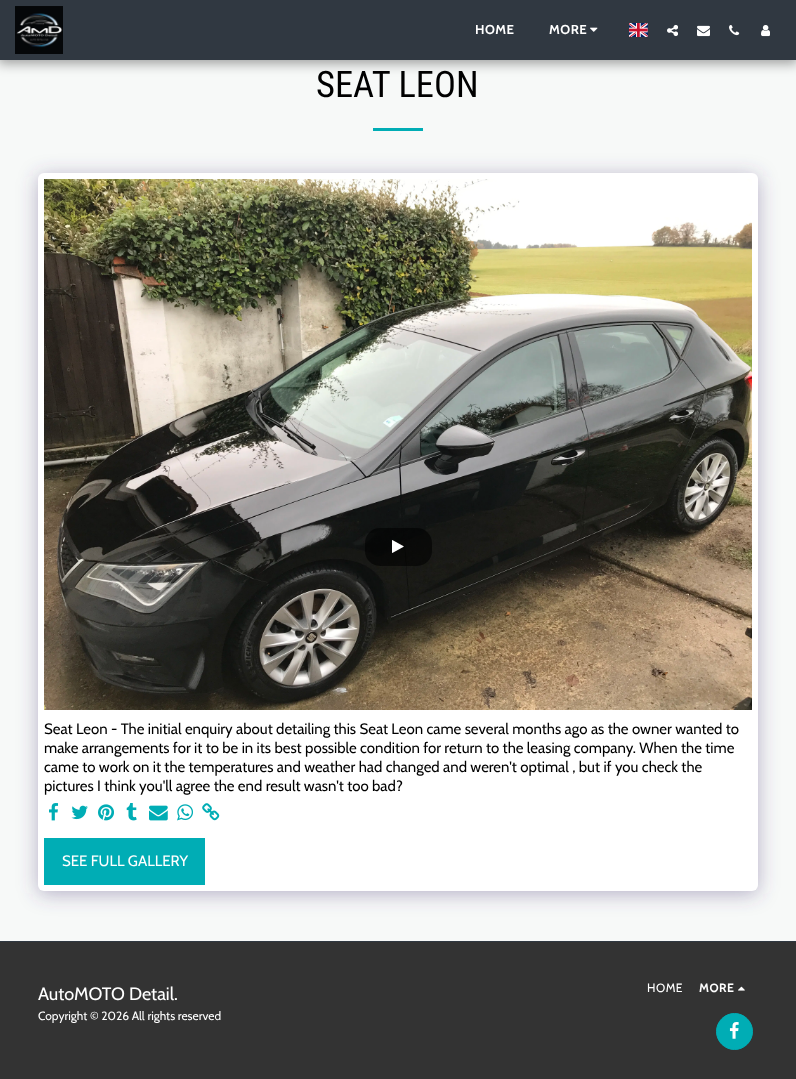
<svg xmlns="http://www.w3.org/2000/svg" width="796" height="1079" viewBox="0 0 796 1079">
  <defs>
    <filter id="blur1" x="-50%" y="-200%" width="200%" height="500%"><feGaussianBlur stdDeviation="6"/></filter>
    <filter id="blur2" x="-50%" y="-200%" width="200%" height="500%"><feGaussianBlur stdDeviation="10"/></filter>
  </defs>
  <rect width="100%" height="100%" fill="#f7f9f8"/>
  <rect x="-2" y="0" width="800" height="64" fill="#000000" fill-opacity="0.35" filter="url(#blur1)"/>
  <rect x="0" y="0" width="796" height="60" fill="#303841"/>
  <image x="15" y="6" width="48" height="48" href="img1.png"/>
  <text x="475" y="34" font-family="Cabin" font-size="13" font-weight="bold" letter-spacing="0.5" fill="#ffffff">HOME</text>
  <text x="549" y="34" font-family="Cabin" font-size="13" font-weight="bold" letter-spacing="0.5" fill="#ffffff">MORE</text>
  <image x="590" y="27" width="8" height="5" href="img2.png"/>
  <image x="629" y="23" width="19" height="14" href="img3.png"/>
  <image x="667" y="24" width="11" height="13" href="img4.png"/>
  <image x="697" y="25" width="13" height="12" href="img5.png"/>
  <image x="729" y="25" width="11" height="11" href="img6.png"/>
  <image x="761" y="25" width="9" height="12" href="img7.png"/>
  <text x="316" y="97" font-family="Roboto Condensed" font-size="36.5" fill="#000000">SEAT LEON</text>
  <rect x="373" y="128" width="50" height="3" fill="#00adb5"/>
  <rect x="38" y="176" width="720" height="718" rx="6" fill="#4d3f7a" fill-opacity="0.4" filter="url(#blur2)"/>
  <rect x="38" y="173" width="720" height="718" rx="6" fill="#ffffff"/>
  <image x="44" y="179" width="708" height="531" href="img8.png"/>
  <rect x="365" y="528" width="67" height="38" rx="15" fill="#000000" fill-opacity="0.57"/>
  <image x="392" y="540" width="12" height="13" href="img9.png"/>
  <text x="44" y="734" font-family="Cabin" font-size="15" fill="#000000">Seat Leon - The initial enquiry about detailing this Seat Leon came several months ago as the owner wanted to</text>
  <text x="44" y="753" font-family="Cabin" font-size="15" fill="#000000">make arrangements for it to be in its best possible condition for return to the leasing company. When the time</text>
  <text x="44" y="772" font-family="Cabin" font-size="15" fill="#000000">came to work on it the temperatures and weather had changed and weren't optimal , but if you check the</text>
  <text x="44" y="791" font-family="Cabin" font-size="15" fill="#000000">pictures I think you'll agree the end result wasn't too bad?</text>
  <image x="49" y="803" width="10" height="18" href="img10.png"/>
  <image x="71" y="805" width="17" height="15" href="img11.png"/>
  <image x="98" y="804" width="16" height="17" href="img12.png"/>
  <image x="126" y="803" width="11" height="18" href="img13.png"/>
  <image x="149" y="805" width="19" height="16" href="img14.png"/>
  <image x="177" y="804" width="16" height="17" href="img15.png"/>
  <image x="202" y="803" width="18" height="18" href="img16.png"/>
  <rect x="44" y="838" width="161" height="47" fill="#00adb5"/>
  <text x="62" y="866" font-family="Cabin" font-size="15" fill="#ffffff">SEE FULL GALLERY</text>
  <rect x="0" y="942" width="796" height="137" fill="#333333"/>
  <rect x="0" y="941" width="796" height="1" fill="#303841"/>
  <text x="38" y="1000" font-family="Cabin" font-size="18" fill="#ffffff">AutoMOTO Detail.</text>
  <text x="38" y="1020" font-family="Cabin" font-size="12" fill="#ffffff">Copyright © 2026 All rights reserved</text>
  <text x="647" y="992" font-family="Cabin" font-size="12" letter-spacing="0.5" fill="#ffffff">HOME</text>
  <text x="699" y="992" font-family="Cabin" font-size="12" font-weight="bold" letter-spacing="0.5" fill="#ffffff">MORE</text>
  <image x="738" y="986" width="7" height="5" href="img17.png"/>
  <circle cx="734.5" cy="1031.5" r="18" fill="#00adb5" stroke="#00adb5"/>
  <image x="729" y="1022" width="10" height="17" href="img18.png"/>
</svg>
